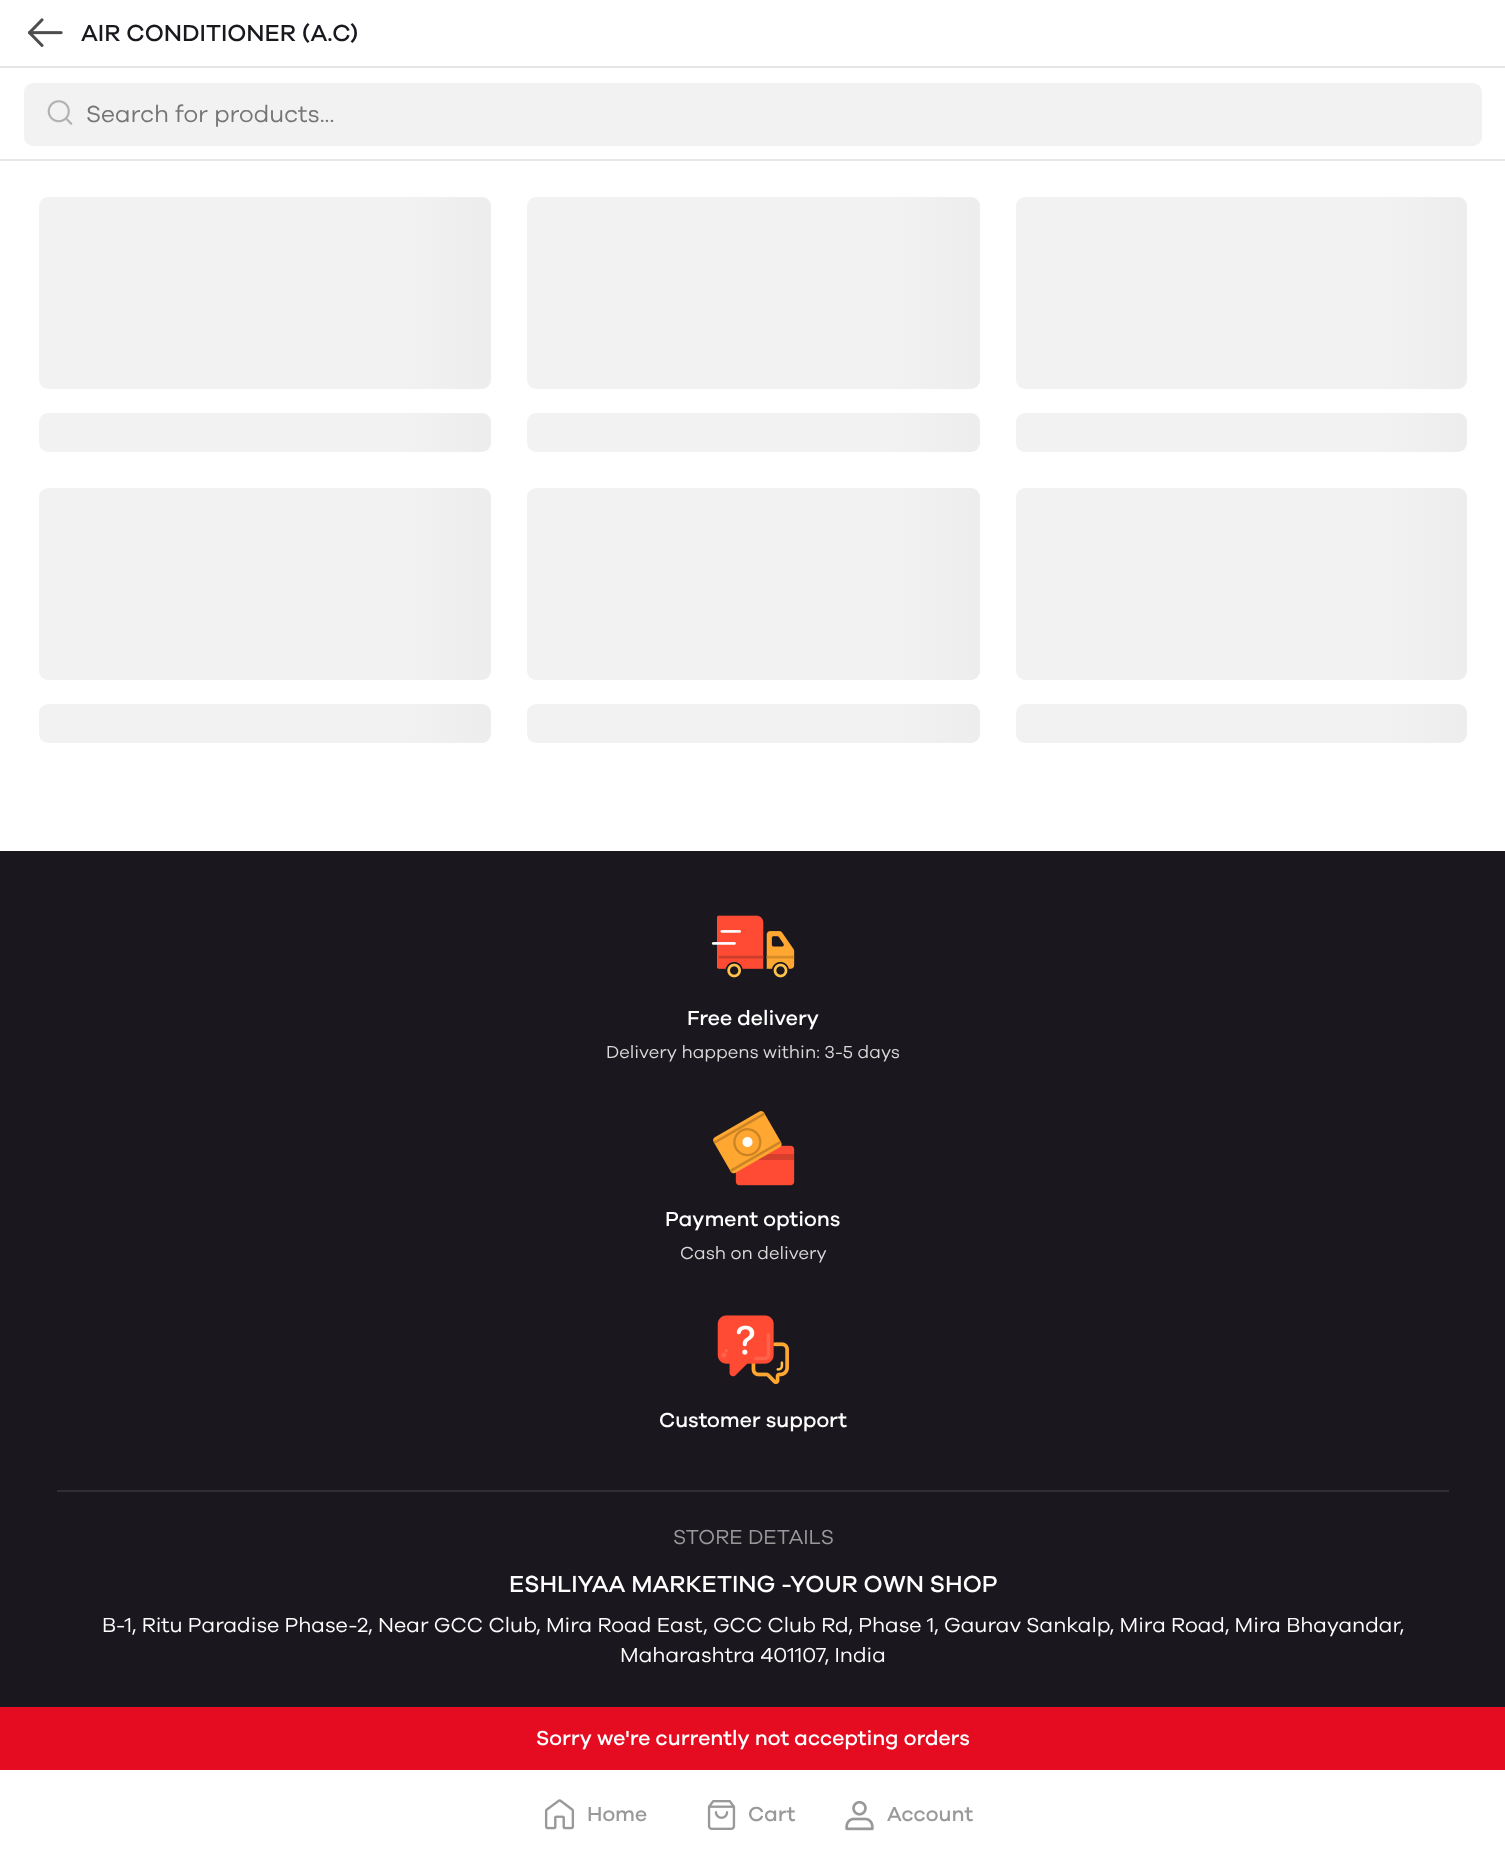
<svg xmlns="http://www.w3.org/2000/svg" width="1505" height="1859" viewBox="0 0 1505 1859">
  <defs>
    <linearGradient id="g1" gradientUnits="userSpaceOnUse" x1="39" y1="293" x2="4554" y2="292"><stop offset="0.08" stop-color="#f2f2f2"/><stop offset="0.18" stop-color="#d9d9d9"/><stop offset="0.33" stop-color="#f2f2f2"/></linearGradient>
    <linearGradient id="g2" gradientUnits="userSpaceOnUse" x1="39" y1="432" x2="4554" y2="432"><stop offset="0.08" stop-color="#f2f2f2"/><stop offset="0.18" stop-color="#d9d9d9"/><stop offset="0.33" stop-color="#f2f2f2"/></linearGradient>
    <linearGradient id="g3" gradientUnits="userSpaceOnUse" x1="527" y1="293" x2="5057" y2="292"><stop offset="0.08" stop-color="#f2f2f2"/><stop offset="0.18" stop-color="#d9d9d9"/><stop offset="0.33" stop-color="#f2f2f2"/></linearGradient>
    <linearGradient id="g4" gradientUnits="userSpaceOnUse" x1="527" y1="432" x2="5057" y2="432"><stop offset="0.08" stop-color="#f2f2f2"/><stop offset="0.18" stop-color="#d9d9d9"/><stop offset="0.33" stop-color="#f2f2f2"/></linearGradient>
    <linearGradient id="g5" gradientUnits="userSpaceOnUse" x1="1016" y1="293" x2="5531" y2="292"><stop offset="0.08" stop-color="#f2f2f2"/><stop offset="0.18" stop-color="#d9d9d9"/><stop offset="0.33" stop-color="#f2f2f2"/></linearGradient>
    <linearGradient id="g6" gradientUnits="userSpaceOnUse" x1="1016" y1="432" x2="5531" y2="432"><stop offset="0.08" stop-color="#f2f2f2"/><stop offset="0.18" stop-color="#d9d9d9"/><stop offset="0.33" stop-color="#f2f2f2"/></linearGradient>
    <linearGradient id="g7" gradientUnits="userSpaceOnUse" x1="39" y1="584" x2="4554" y2="583"><stop offset="0.08" stop-color="#f2f2f2"/><stop offset="0.18" stop-color="#d9d9d9"/><stop offset="0.33" stop-color="#f2f2f2"/></linearGradient>
    <linearGradient id="g8" gradientUnits="userSpaceOnUse" x1="39" y1="723" x2="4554" y2="723"><stop offset="0.08" stop-color="#f2f2f2"/><stop offset="0.18" stop-color="#d9d9d9"/><stop offset="0.33" stop-color="#f2f2f2"/></linearGradient>
    <linearGradient id="g9" gradientUnits="userSpaceOnUse" x1="527" y1="584" x2="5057" y2="583"><stop offset="0.08" stop-color="#f2f2f2"/><stop offset="0.18" stop-color="#d9d9d9"/><stop offset="0.33" stop-color="#f2f2f2"/></linearGradient>
    <linearGradient id="g10" gradientUnits="userSpaceOnUse" x1="527" y1="723" x2="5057" y2="723"><stop offset="0.08" stop-color="#f2f2f2"/><stop offset="0.18" stop-color="#d9d9d9"/><stop offset="0.33" stop-color="#f2f2f2"/></linearGradient>
    <linearGradient id="g11" gradientUnits="userSpaceOnUse" x1="1016" y1="584" x2="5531" y2="583"><stop offset="0.08" stop-color="#f2f2f2"/><stop offset="0.18" stop-color="#d9d9d9"/><stop offset="0.33" stop-color="#f2f2f2"/></linearGradient>
    <linearGradient id="g12" gradientUnits="userSpaceOnUse" x1="1016" y1="723" x2="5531" y2="723"><stop offset="0.08" stop-color="#f2f2f2"/><stop offset="0.18" stop-color="#d9d9d9"/><stop offset="0.33" stop-color="#f2f2f2"/></linearGradient>
  </defs>
  <rect width="100%" height="100%" fill="#ffffff"/>
  <rect x="0" y="66" width="1505" height="2" fill="#e6e6e6"/>
  <image x="28" y="18" width="35" height="29" href="img1.png"/>
  <text x="81" y="41" font-family="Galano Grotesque" font-size="24" font-weight="500" fill="#1a181e">AIR CONDITIONER (A.C)</text>
  <rect x="0" y="159" width="1505" height="2" fill="#e6e6e6"/>
  <rect x="24" y="83" width="1458" height="63" rx="9" fill="#f2f2f2"/>
  <image x="47" y="100" width="26" height="25" href="img2.png"/>
  <text x="86" y="122" font-family="Galano Grotesque" font-size="24" fill="#757575">Search for products...</text>
  <rect x="39" y="197" width="452" height="192" rx="9" fill="url(#g1)"/>
  <rect x="39" y="413" width="452" height="39" rx="9" fill="url(#g2)"/>
  <rect x="527" y="197" width="453" height="192" rx="9" fill="url(#g3)"/>
  <rect x="527" y="413" width="453" height="39" rx="9" fill="url(#g4)"/>
  <rect x="1016" y="197" width="451" height="192" rx="9" fill="url(#g5)"/>
  <rect x="1016" y="413" width="451" height="39" rx="9" fill="url(#g6)"/>
  <rect x="39" y="488" width="452" height="192" rx="9" fill="url(#g7)"/>
  <rect x="39" y="704" width="452" height="39" rx="9" fill="url(#g8)"/>
  <rect x="527" y="488" width="453" height="192" rx="9" fill="url(#g9)"/>
  <rect x="527" y="704" width="453" height="39" rx="9" fill="url(#g10)"/>
  <rect x="1016" y="488" width="451" height="192" rx="9" fill="url(#g11)"/>
  <rect x="1016" y="704" width="451" height="39" rx="9" fill="url(#g12)"/>
  <rect x="0" y="851" width="1505" height="856" fill="#1a181e"/>
  <image x="711" y="915" width="84" height="63" href="img3.png"/>
  <text x="687" y="1025" font-family="Galano Grotesque" font-size="21" font-weight="500" fill="#ffffff">Free delivery</text>
  <text x="606" y="1058" font-family="Galano Grotesque" font-size="18" fill="#d9d9d9">Delivery happens within: 3-5 days</text>
  <image x="713" y="1111" width="82" height="75" href="img4.png"/>
  <text x="665" y="1226" font-family="Galano Grotesque" font-size="21" font-weight="500" fill="#ffffff">Payment options</text>
  <text x="680" y="1259" font-family="Galano Grotesque" font-size="18" fill="#d9d9d9">Cash on delivery</text>
  <image x="717" y="1315" width="72" height="70" href="img5.png"/>
  <text x="659" y="1427" font-family="Galano Grotesque" font-size="21" font-weight="500" fill="#ffffff">Customer support</text>
  <rect x="57" y="1490" width="1392" height="2" fill="#312f35"/>
  <text x="673" y="1544" font-family="Galano Grotesque" font-size="21" fill="#999999">STORE DETAILS</text>
  <text x="509" y="1592" font-family="Galano Grotesque" font-size="24" font-weight="500" fill="#ffffff">ESHLIYAA MARKETING -YOUR OWN SHOP</text>
  <text x="102" y="1632" font-family="Galano Grotesque" font-size="21" fill="#ffffff">B-1, Ritu Paradise Phase-2, Near GCC Club, Mira Road East, GCC Club Rd, Phase 1, Gaurav Sankalp, Mira Road, Mira Bhayandar,</text>
  <text x="620" y="1662" font-family="Galano Grotesque" font-size="21" fill="#ffffff">Maharashtra 401107, India</text>
  <rect x="0" y="1707" width="1505" height="63" fill="#e50b20"/>
  <text x="536" y="1745" font-family="Galano Grotesque" font-size="21" font-weight="500" fill="#ffffff">Sorry we're currently not accepting orders</text>
  <image x="544" y="1799" width="31" height="31" href="img6.png"/>
  <text x="587" y="1821" font-family="Galano Grotesque" font-size="21" font-weight="500" fill="#999999">Home</text>
  <image x="707" y="1800" width="29" height="30" href="img7.png"/>
  <text x="748" y="1821" font-family="Galano Grotesque" font-size="21" font-weight="500" fill="#999999">Cart</text>
  <image x="845" y="1800" width="29" height="31" href="img8.png"/>
  <text x="887" y="1821" font-family="Galano Grotesque" font-size="21" font-weight="500" fill="#999999">Account</text>
</svg>
